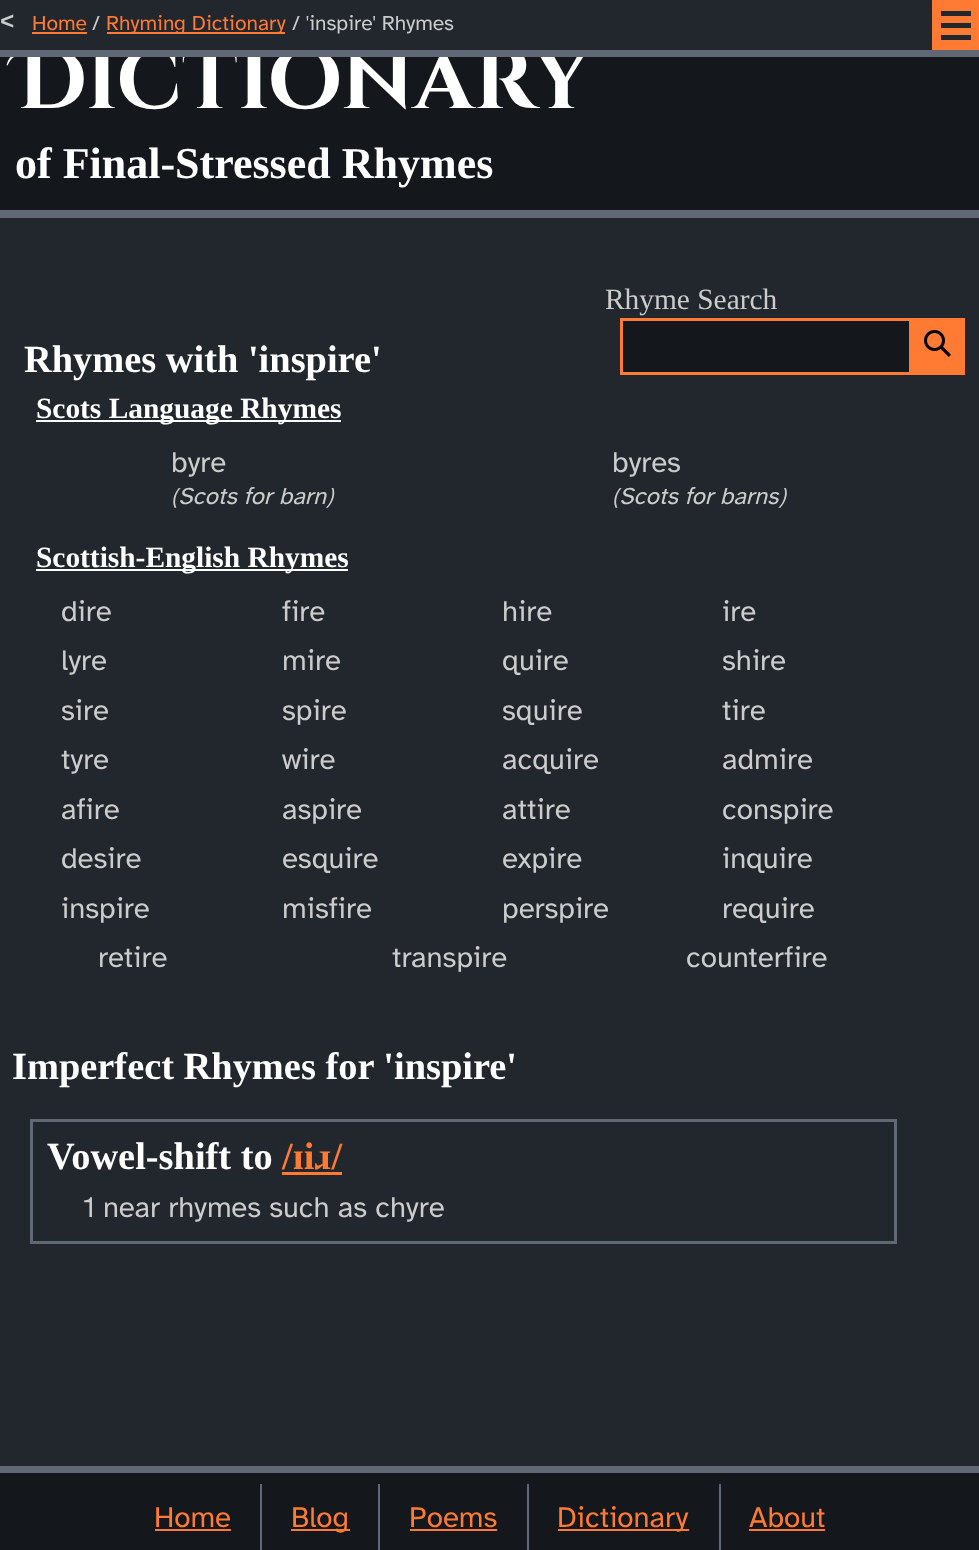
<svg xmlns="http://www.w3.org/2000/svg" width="979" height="1550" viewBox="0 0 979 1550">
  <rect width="100%" height="100%" fill="#22272e"/>
  <rect x="0" y="57" width="979" height="153" fill="#14181c"/>
  <text x="15" y="108" font-family="Cinzel Decorative" font-size="84" font-weight="bold" fill="#ffffff">Dictionary</text>
  <rect x="23" y="47" width="571" height="3" fill="#22272e"/>
  <rect x="0" y="50" width="979" height="7" fill="#5f6874"/>
  <text x="0" y="29" font-family="Liberation Mono" font-size="24" font-weight="bold" fill="#cccccc">&lt;</text>
  <text x="32" y="30" font-family="Atkinson Hyperlegible" font-size="21" fill="#ff7a33">Home</text>
  <rect x="32" y="32" width="55" height="2" fill="#ff7a33"/>
  <text x="92" y="30" font-family="Atkinson Hyperlegible" font-size="21" fill="#cccccc">/</text>
  <rect x="107" y="32" width="178" height="2" fill="#ff7a33"/>
  <text x="106" y="30" font-family="Atkinson Hyperlegible" font-size="21" fill="#ff7a33">Rhyming Dictionary</text>
  <text x="292" y="30" font-family="Atkinson Hyperlegible" font-size="21" fill="#cccccc">/ 'inspire' Rhymes</text>
  <rect x="933.5" y="1.5" width="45" height="47" fill="none" stroke="#ff7a33" stroke-width="3"/>
  <rect x="935" y="3" width="42" height="44" fill="#ff7a33"/>
  <rect x="941" y="11" width="30" height="5" fill="#22272e"/>
  <rect x="941" y="23" width="30" height="5" fill="#22272e"/>
  <rect x="941" y="35" width="30" height="5" fill="#22272e"/>
  <rect x="0" y="210" width="979" height="8" fill="#5f6874"/>
  <text x="15" y="178" font-family="Liberation Serif" font-size="44" font-weight="bold" fill="#ffffff">of Final-Stressed Rhymes</text>
  <text x="605" y="309" font-family="Liberation Serif" font-size="29.4" fill="#cccccc">Rhyme Search</text>
  <rect x="621.5" y="319.5" width="289" height="54" fill="#14181c" stroke="#ff7a33" stroke-width="3"/>
  <rect x="912" y="318" width="53" height="57" fill="#ff7a33"/>
  <image x="924" y="330" width="27" height="27" href="img1.png"/>
  <text x="24" y="372" font-family="Liberation Serif" font-size="38.4" font-weight="bold" fill="#ffffff">Rhymes with 'inspire'</text>
  <rect x="36" y="420" width="305" height="2" fill="#ffffff"/>
  <text x="36" y="418" font-family="Liberation Serif" font-size="29.4" font-weight="bold" fill="#ffffff">Scots Language Rhymes</text>
  <text x="171" y="472" font-family="Atkinson Hyperlegible" font-size="29.4" fill="#cccccc">byre</text>
  <text x="171" y="504" font-family="Atkinson Hyperlegible" font-size="24" font-style="italic" fill="#cccccc">(Scots for barn)</text>
  <text x="612" y="472" font-family="Atkinson Hyperlegible" font-size="29.4" fill="#cccccc">byres</text>
  <text x="612" y="504" font-family="Atkinson Hyperlegible" font-size="24" font-style="italic" fill="#cccccc">(Scots for barns)</text>
  <rect x="36" y="569" width="312" height="2" fill="#ffffff"/>
  <text x="36" y="567" font-family="Liberation Serif" font-size="29.4" font-weight="bold" fill="#ffffff">Scottish-English Rhymes</text>
  <text x="61" y="621" font-family="Atkinson Hyperlegible" font-size="29.4" fill="#cccccc">dire</text>
  <text x="282" y="621" font-family="Atkinson Hyperlegible" font-size="29.4" fill="#cccccc">fire</text>
  <text x="502" y="621" font-family="Atkinson Hyperlegible" font-size="29.4" fill="#cccccc">hire</text>
  <text x="722" y="621" font-family="Atkinson Hyperlegible" font-size="29.4" fill="#cccccc">ire</text>
  <text x="61" y="670" font-family="Atkinson Hyperlegible" font-size="29.4" fill="#cccccc">lyre</text>
  <text x="282" y="670" font-family="Atkinson Hyperlegible" font-size="29.4" fill="#cccccc">mire</text>
  <text x="502" y="670" font-family="Atkinson Hyperlegible" font-size="29.4" fill="#cccccc">quire</text>
  <text x="722" y="670" font-family="Atkinson Hyperlegible" font-size="29.4" fill="#cccccc">shire</text>
  <text x="61" y="720" font-family="Atkinson Hyperlegible" font-size="29.4" fill="#cccccc">sire</text>
  <text x="282" y="720" font-family="Atkinson Hyperlegible" font-size="29.4" fill="#cccccc">spire</text>
  <text x="502" y="720" font-family="Atkinson Hyperlegible" font-size="29.4" fill="#cccccc">squire</text>
  <text x="722" y="720" font-family="Atkinson Hyperlegible" font-size="29.4" fill="#cccccc">tire</text>
  <text x="61" y="769" font-family="Atkinson Hyperlegible" font-size="29.4" fill="#cccccc">tyre</text>
  <text x="282" y="769" font-family="Atkinson Hyperlegible" font-size="29.4" fill="#cccccc">wire</text>
  <text x="502" y="769" font-family="Atkinson Hyperlegible" font-size="29.4" fill="#cccccc">acquire</text>
  <text x="722" y="769" font-family="Atkinson Hyperlegible" font-size="29.4" fill="#cccccc">admire</text>
  <text x="61" y="819" font-family="Atkinson Hyperlegible" font-size="29.4" fill="#cccccc">afire</text>
  <text x="282" y="819" font-family="Atkinson Hyperlegible" font-size="29.4" fill="#cccccc">aspire</text>
  <text x="502" y="819" font-family="Atkinson Hyperlegible" font-size="29.4" fill="#cccccc">attire</text>
  <text x="722" y="819" font-family="Atkinson Hyperlegible" font-size="29.4" fill="#cccccc">conspire</text>
  <text x="61" y="868" font-family="Atkinson Hyperlegible" font-size="29.4" fill="#cccccc">desire</text>
  <text x="282" y="868" font-family="Atkinson Hyperlegible" font-size="29.4" fill="#cccccc">esquire</text>
  <text x="502" y="868" font-family="Atkinson Hyperlegible" font-size="29.4" fill="#cccccc">expire</text>
  <text x="722" y="868" font-family="Atkinson Hyperlegible" font-size="29.4" fill="#cccccc">inquire</text>
  <text x="61" y="918" font-family="Atkinson Hyperlegible" font-size="29.4" fill="#cccccc">inspire</text>
  <text x="282" y="918" font-family="Atkinson Hyperlegible" font-size="29.4" fill="#cccccc">misfire</text>
  <text x="502" y="918" font-family="Atkinson Hyperlegible" font-size="29.4" fill="#cccccc">perspire</text>
  <text x="722" y="918" font-family="Atkinson Hyperlegible" font-size="29.4" fill="#cccccc">require</text>
  <text x="98" y="967" font-family="Atkinson Hyperlegible" font-size="29.4" fill="#cccccc">retire</text>
  <text x="392" y="967" font-family="Atkinson Hyperlegible" font-size="29.4" fill="#cccccc">transpire</text>
  <text x="686" y="967" font-family="Atkinson Hyperlegible" font-size="29.4" fill="#cccccc">counterfire</text>
  <text x="12" y="1079" font-family="Liberation Serif" font-size="38.4" font-weight="bold" fill="#ffffff">Imperfect Rhymes for 'inspire'</text>
  <rect x="31.5" y="1120.5" width="864" height="122" fill="none" stroke="#5f6874" stroke-width="3"/>
  <text x="47" y="1169" font-family="Liberation Serif" font-size="38.4" font-weight="bold" fill="#ffffff">Vowel-shift to</text>
  <text x="282" y="1169" font-family="Liberation Serif" font-size="38.4" font-weight="bold" fill="#ff7a33">/ɪiɹ/</text>
  <rect x="282" y="1172" width="60" height="3" fill="#ff7a33"/>
  <text x="83" y="1217" font-family="Atkinson Hyperlegible" font-size="29.4" fill="#cccccc">1 near rhymes such as chyre</text>
  <rect x="0" y="1473" width="979" height="77" fill="#14181c"/>
  <rect x="0" y="1466" width="979" height="7" fill="#5f6874"/>
  <rect x="260" y="1484" width="2" height="66" fill="#5f6874"/>
  <text x="154" y="1527" font-family="Atkinson Hyperlegible" font-size="29.4" fill="#ff7a33">Home</text>
  <rect x="155" y="1529" width="76" height="2" fill="#ff7a33"/>
  <rect x="378" y="1484" width="2" height="66" fill="#5f6874"/>
  <rect x="291" y="1529" width="59" height="2" fill="#ff7a33"/>
  <text x="291" y="1527" font-family="Atkinson Hyperlegible" font-size="29.4" fill="#ff7a33">Blog</text>
  <rect x="527" y="1484" width="2" height="66" fill="#5f6874"/>
  <text x="409" y="1527" font-family="Atkinson Hyperlegible" font-size="29.4" fill="#ff7a33">Poems</text>
  <rect x="410" y="1529" width="87" height="2" fill="#ff7a33"/>
  <rect x="719" y="1484" width="2" height="66" fill="#5f6874"/>
  <rect x="558" y="1529" width="131" height="2" fill="#ff7a33"/>
  <text x="557" y="1527" font-family="Atkinson Hyperlegible" font-size="29.4" fill="#ff7a33">Dictionary</text>
  <text x="749" y="1527" font-family="Atkinson Hyperlegible" font-size="29.4" fill="#ff7a33">About</text>
  <rect x="749" y="1529" width="76" height="2" fill="#ff7a33"/>
</svg>
